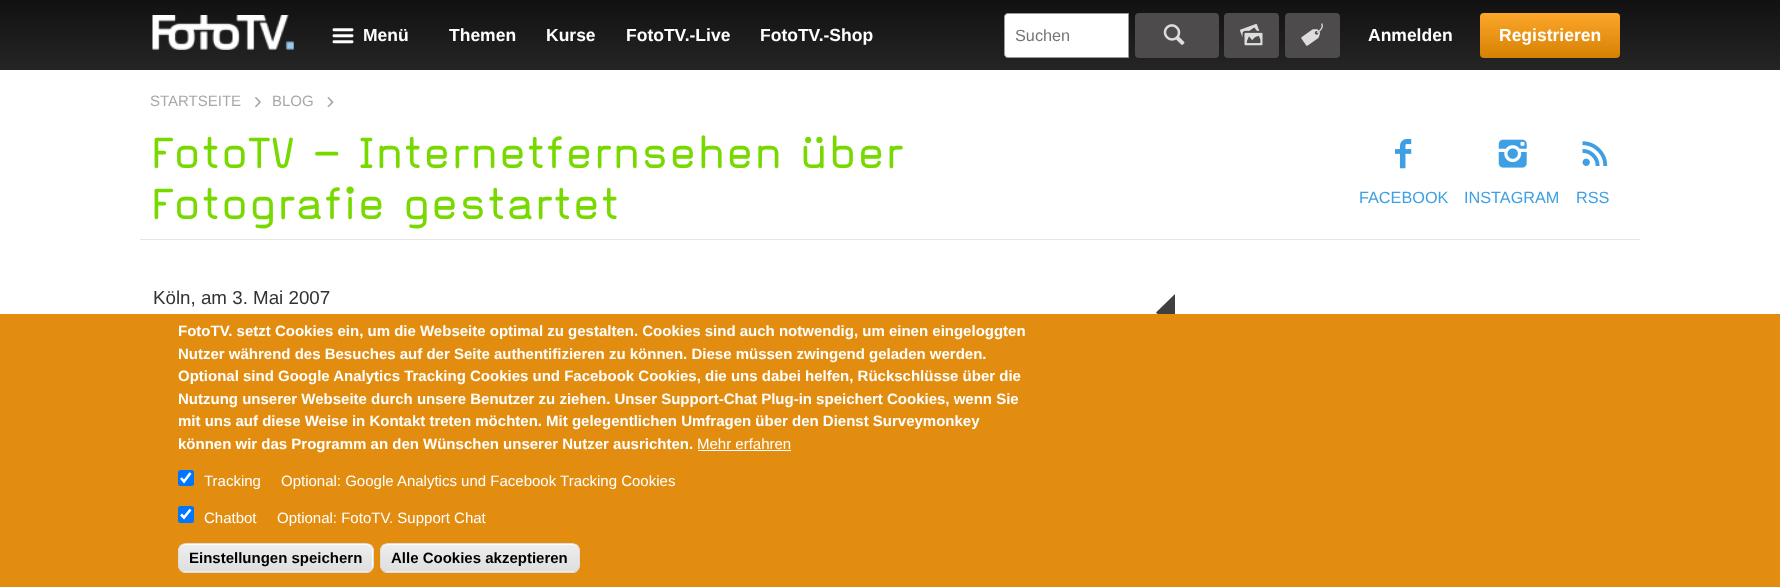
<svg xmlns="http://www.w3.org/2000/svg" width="1780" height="587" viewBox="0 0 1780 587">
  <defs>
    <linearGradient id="g1" gradientUnits="userSpaceOnUse" x1="890" y1="0" x2="890" y2="70"><stop offset="0" stop-color="#111111"/><stop offset="1" stop-color="#252525"/></linearGradient>
    <linearGradient id="g2" gradientUnits="userSpaceOnUse" x1="1550" y1="12" x2="1550" y2="58"><stop offset="0" stop-color="#fea82b"/><stop offset="1" stop-color="#d68104"/></linearGradient>
    <clipPath id="clip1"><rect x="178" y="543" width="196" height="30" rx="8"/></clipPath>
    <linearGradient id="g3" gradientUnits="userSpaceOnUse" x1="276" y1="544" x2="276" y2="571"><stop offset="0.05" stop-color="#ededed"/><stop offset="1" stop-color="#dfdfdf"/></linearGradient>
    <linearGradient id="g4" gradientUnits="userSpaceOnUse" x1="276" y1="571" x2="276" y2="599"><stop offset="0.05" stop-color="#ededed"/><stop offset="1" stop-color="#dfdfdf"/></linearGradient>
    <clipPath id="clip2"><rect x="380" y="543" width="200" height="30" rx="8"/></clipPath>
    <linearGradient id="g5" gradientUnits="userSpaceOnUse" x1="480" y1="544" x2="480" y2="571"><stop offset="0.05" stop-color="#ededed"/><stop offset="1" stop-color="#dfdfdf"/></linearGradient>
    <linearGradient id="g6" gradientUnits="userSpaceOnUse" x1="480" y1="571" x2="480" y2="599"><stop offset="0.05" stop-color="#ededed"/><stop offset="1" stop-color="#dfdfdf"/></linearGradient>
  </defs>
  <rect width="100%" height="100%" fill="#ffffff"/>
  <rect x="0" y="0" width="1780" height="70" fill="url(#g1)"/>
  <image x="152" y="15" width="142" height="35" href="img1.png"/>
  <image x="332" y="28" width="22" height="16" href="img2.png"/>
  <text x="363" y="41" font-family="Liberation Sans" font-size="17.5" font-weight="bold" fill="#ffffff">Menü</text>
  <text x="1368" y="41" font-family="Liberation Sans" font-size="17.5" font-weight="bold" fill="#ffffff">Anmelden</text>
  <text x="449" y="41" font-family="Liberation Sans" font-size="17.5" font-weight="bold" fill="#ffffff">Themen</text>
  <text x="546" y="41" font-family="Liberation Sans" font-size="17.5" font-weight="bold" fill="#ffffff">Kurse</text>
  <text x="626" y="41" font-family="Liberation Sans" font-size="17.5" font-weight="bold" fill="#ffffff">FotoTV.-Live</text>
  <text x="760" y="41" font-family="Liberation Sans" font-size="17.5" font-weight="bold" fill="#ffffff">FotoTV.-Shop</text>
  <path d="M1008 13.5H1128.5V57.5H1008C1006 57.5 1004.5 56 1004.5 54V17C1004.5 15 1006 13.5 1008 13.5Z" fill="#ffffff" stroke="#999999"/>
  <text x="1015" y="41" font-family="Liberation Sans" font-size="16.25" fill="#757575">Suchen</text>
  <rect x="1135" y="13" width="84" height="45" rx="4" fill="#4d4b4c"/>
  <image x="1163" y="24" width="22" height="21" href="img3.png"/>
  <rect x="1224" y="13" width="55" height="45" rx="4" fill="#4d4b4c"/>
  <image x="1240" y="24" width="23" height="22" href="img4.png"/>
  <rect x="1285" y="13" width="55" height="45" rx="4" fill="#4d4b4c"/>
  <image x="1301" y="23" width="22" height="23" href="img5.png"/>
  <rect x="1480" y="13" width="140" height="45" rx="4" fill="url(#g2)"/>
  <text x="1499" y="41" font-family="Liberation Sans" font-size="17.5" font-weight="bold" fill="#ffffff">Registrieren</text>
  <rect x="140" y="239" width="1500" height="1" fill="#e5e5e5"/>
  <text x="150" y="106" font-family="Liberation Sans" font-size="15" fill="#a8a8a8">STARTSEITE</text>
  <image x="255" y="97" width="6" height="11" href="img6.png"/>
  <text x="272" y="106" font-family="Liberation Sans" font-size="15" fill="#a8a8a8">BLOG</text>
  <image x="327" y="97" width="7" height="11" href="img7.png"/>
  <text x="150" y="168" font-family="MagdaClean" font-size="51.25" font-weight="500" fill="#78d900">FotoTV – Internetfernsehen über</text>
  <text x="150" y="219" font-family="MagdaClean" font-size="51.25" font-weight="500" fill="#78d900">Fotografie gestartet</text>
  <image x="1395" y="139" width="17" height="30" href="img8.png"/>
  <text x="1359" y="203" font-family="Liberation Sans" font-size="16.25" fill="#3ea0e3">FACEBOOK</text>
  <image x="1498" y="139" width="29" height="29" href="img9.png"/>
  <text x="1464" y="203" font-family="Liberation Sans" font-size="16.25" fill="#3ea0e3">INSTAGRAM</text>
  <image x="1582" y="141" width="26" height="25" href="img10.png"/>
  <text x="1576" y="203" font-family="Liberation Sans" font-size="16.25" fill="#3ea0e3">RSS</text>
  <text x="153" y="304" font-family="Liberation Sans" font-size="18.75" fill="#333333">Köln, am 3. Mai 2007</text>
  <path d="M1175 294V331L1156 312.5Z" fill="#3f3f3f"/>
  <rect x="0" y="314" width="1780" height="273" fill="#e28d10"/>
  <text x="178" y="336" font-family="Liberation Sans" font-size="15" font-weight="bold" fill="#ffffff">FotoTV. setzt Cookies ein, um die Webseite optimal zu gestalten. Cookies sind auch notwendig, um einen eingeloggten</text>
  <text x="178" y="359" font-family="Liberation Sans" font-size="15" font-weight="bold" fill="#ffffff">Nutzer während des Besuches auf der Seite authentifizieren zu können. Diese müssen zwingend geladen werden.</text>
  <text x="178" y="381" font-family="Liberation Sans" font-size="15" font-weight="bold" fill="#ffffff">Optional sind Google Analytics Tracking Cookies und Facebook Cookies, die uns dabei helfen, Rückschlüsse über die</text>
  <text x="178" y="404" font-family="Liberation Sans" font-size="15" font-weight="bold" fill="#ffffff">Nutzung unserer Webseite durch unsere Benutzer zu ziehen. Unser Support-Chat Plug-in speichert Cookies, wenn Sie</text>
  <text x="178" y="426" font-family="Liberation Sans" font-size="15" font-weight="bold" fill="#ffffff">mit uns auf diese Weise in Kontakt treten möchten. Mit gelegentlichen Umfragen über den Dienst Surveymonkey</text>
  <text x="178" y="449" font-family="Liberation Sans" font-size="15" font-weight="bold" fill="#ffffff">können wir das Programm an den Wünschen unserer Nutzer ausrichten.</text>
  <text x="697" y="449" font-family="Liberation Sans" font-size="15" fill="#ffffff">Mehr erfahren</text>
  <rect x="698" y="450" width="93" height="1" fill="#ffffff"/>
  <rect x="178" y="470" width="16" height="16" rx="2.5" fill="#0075ff"/>
  <path d="M181 478L184 481.5L190.5 473" fill="none" stroke="#ffffff" stroke-width="2.6"/>
  <text x="204" y="486" font-family="Liberation Sans" font-size="15" fill="#ffffff">Tracking</text>
  <text x="281" y="486" font-family="Liberation Sans" font-size="15" fill="#ffffff">Optional: Google Analytics und Facebook Tracking Cookies</text>
  <rect x="178" y="506" width="16" height="17" rx="2.5" fill="#0075ff"/>
  <path d="M181 514.5L184 517.5L190.5 509.5" fill="none" stroke="#ffffff" stroke-width="2.6"/>
  <text x="204" y="523" font-family="Liberation Sans" font-size="15" fill="#ffffff">Chatbot</text>
  <text x="277" y="523" font-family="Liberation Sans" font-size="15" fill="#ffffff">Optional: FotoTV. Support Chat</text>
  <g clip-path="url(#clip1)">
    <rect x="178" y="544" width="196" height="27" fill="url(#g3)"/>
    <rect x="178" y="571" width="196" height="2" fill="url(#g4)"/>
  </g>
  <path d="M185 545H366C370 545 372 548 372 551V566L371 569C372 568 373 567 373 565V550C373 547 370 544 367 544H185C182 544 179 547 179 550V551C179 548 182 545 185 545Z" fill="#ffffff"/>
  <rect x="178.5" y="543.5" width="195" height="29" rx="7.5" fill="none" stroke="#dcdcdc"/>
  <text x="189" y="563" font-family="Liberation Sans" font-size="15" font-weight="bold" fill="#000000">Einstellungen speichern</text>
  <g clip-path="url(#clip2)">
    <rect x="380" y="544" width="200" height="27" fill="url(#g5)"/>
    <rect x="380" y="571" width="200" height="2" fill="url(#g6)"/>
  </g>
  <path d="M388 545H572C576 545 579 548 579 551C579 548 578 545 574 544H387C383 544 381 547 381 551C381 548 384 545 388 545Z" fill="#ffffff"/>
  <rect x="380.5" y="543.5" width="199" height="29" rx="7.5" fill="none" stroke="#dcdcdc"/>
  <text x="391" y="563" font-family="Liberation Sans" font-size="15" font-weight="bold" fill="#000000">Alle Cookies akzeptieren</text>
</svg>
